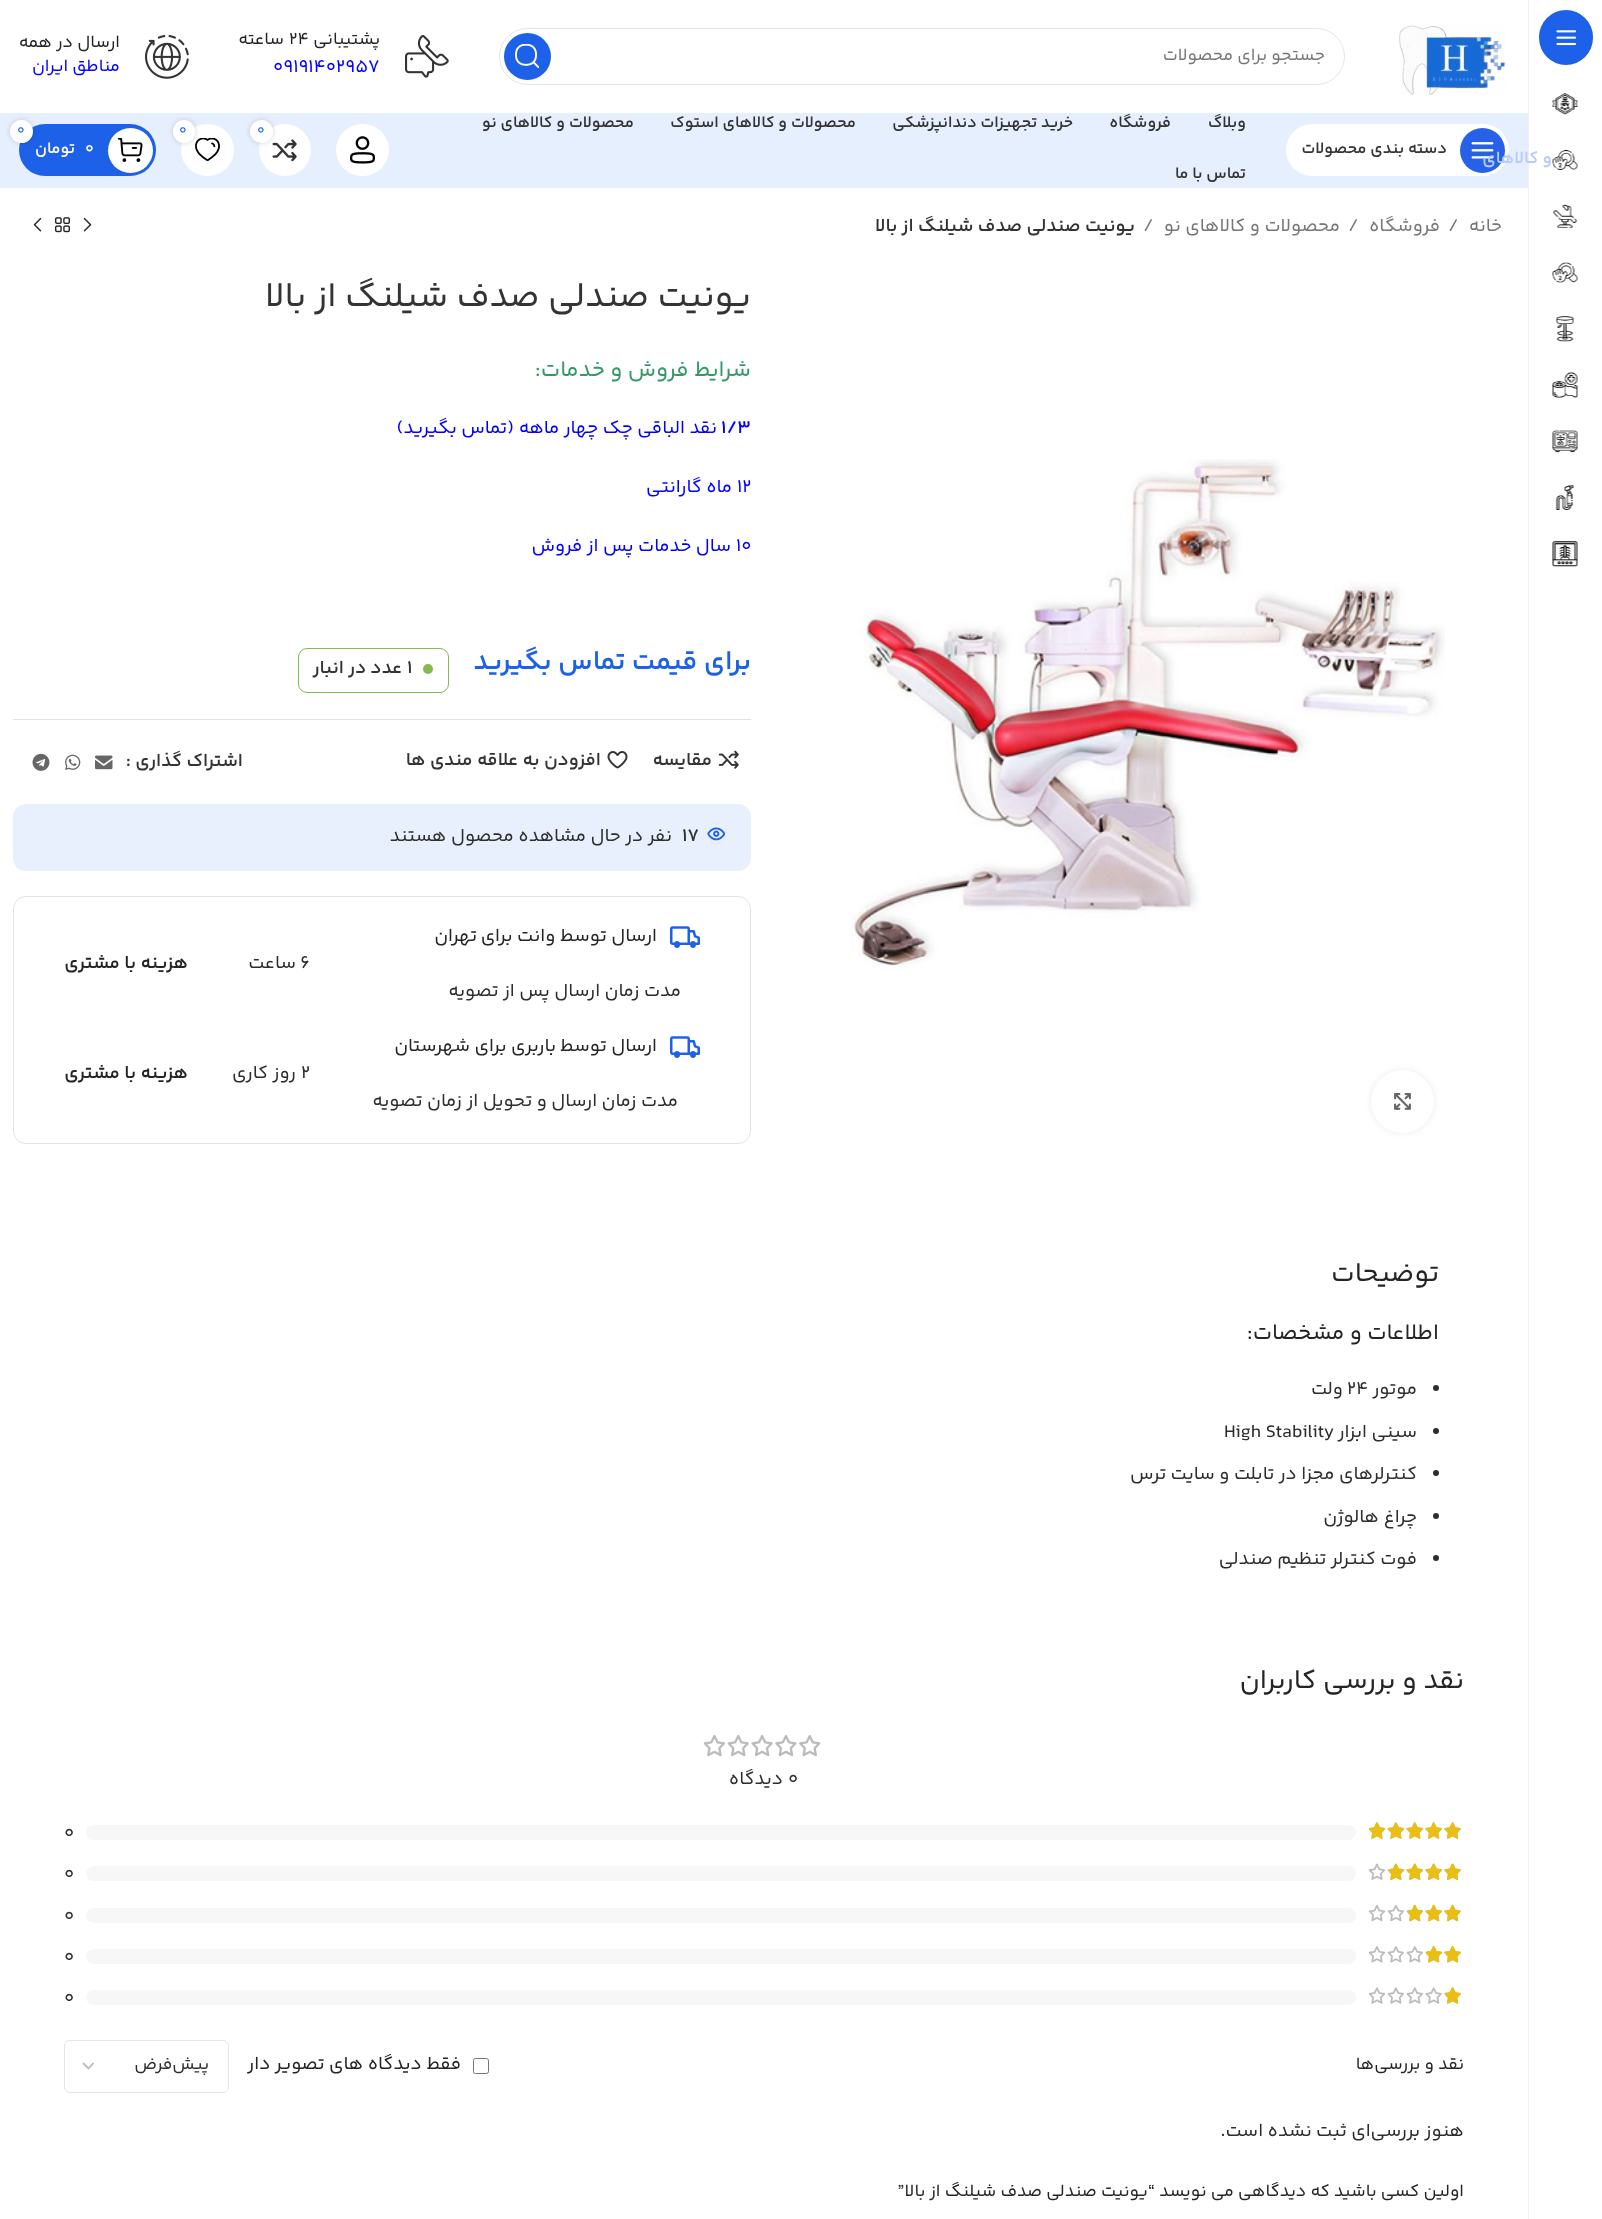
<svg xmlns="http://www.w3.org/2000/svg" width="1602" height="2219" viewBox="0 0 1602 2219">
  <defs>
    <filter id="blur1" x="-50%" y="-200%" width="200%" height="500%"><feGaussianBlur stdDeviation="2.5"/></filter>
    <filter id="blur2" x="-50%" y="-200%" width="200%" height="500%"><feGaussianBlur stdDeviation="3"/></filter>
  </defs>
  <rect width="100%" height="100%" fill="#ffffff"/>
  <rect x="1528" y="0" width="1" height="2219" fill="#efefef"/>
  <rect x="1539" y="10" width="54" height="55" rx="27" fill="#1c61e7"/>
  <image x="1556" y="30" width="21" height="16" href="img1.png"/>
  <image x="1552" y="93" width="26" height="22" href="img2.png"/>
  <image x="1552" y="150" width="26" height="20" href="img3.png"/>
  <rect x="0" y="113" width="1528" height="75" fill="#e6effd"/>
  <rect x="1286" y="124" width="223" height="52" rx="26" fill="#ffffff"/>
  <circle cx="1482.5" cy="150.5" r="22.5" fill="#2761e7"/>
  <image x="1471" y="142" width="23" height="17" href="img15.png"/>
  <text x="1552" y="163" font-family="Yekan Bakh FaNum" font-size="17.5" font-weight="600" direction="rtl" fill="#b8ccf7">و کالاهای</text>
  <image x="1553" y="204" width="25" height="24" href="img4.png"/>
  <image x="1552" y="262" width="26" height="21" href="img5.png"/>
  <image x="1555" y="316" width="20" height="26" href="img6.png"/>
  <image x="1552" y="372" width="26" height="26" href="img7.png"/>
  <image x="1552" y="430" width="26" height="23" href="img8.png"/>
  <image x="1555" y="485" width="19" height="25" href="img9.png"/>
  <image x="1552" y="541" width="26" height="26" href="img10.png"/>
  <image x="1399" y="25" width="107" height="70" href="img11.png"/>
  <rect x="499.5" y="28.5" width="845" height="56" rx="28" fill="none" stroke="#e6e6e6"/>
  <text x="1325" y="60" font-family="Yekan Bakh FaNum" font-size="17.5" direction="rtl" fill="#777777">جستجو برای محصولات</text>
  <circle cx="527.5" cy="56.5" r="23.5" fill="#1c61e7"/>
  <image x="515" y="44" width="24" height="25" href="img12.png"/>
  <image x="405" y="35" width="44" height="43" href="img13.png"/>
  <text x="380" y="44" font-family="Yekan Bakh FaNum" font-size="17.5" direction="rtl" fill="#242424">پشتیبانی</text>
  <text x="289" y="44" font-family="Yekan Bakh FaNum" font-size="17.5" fill="#242424">24</text>
  <text x="284" y="44" font-family="Yekan Bakh FaNum" font-size="17.5" direction="rtl" fill="#242424">ساعته</text>
  <text x="273" y="72" font-family="Yekan Bakh FaNum" font-size="18.75" fill="#0000ff">09191402957</text>
  <image x="145" y="35" width="44" height="44" href="img14.png"/>
  <text x="120" y="47" font-family="Yekan Bakh FaNum" font-size="17.5" direction="rtl" fill="#242424">ارسال در همه</text>
  <text x="120" y="71" font-family="Yekan Bakh FaNum" font-size="17.5" direction="rtl" fill="#0000ff">مناطق ایران</text>
  <text x="1447" y="153" font-family="Yekan Bakh FaNum" font-size="16.25" font-weight="600" direction="rtl" fill="#333333">دسته بندی محصولات</text>
  <text x="1246" y="127" font-family="Yekan Bakh FaNum" font-size="16.25" font-weight="600" direction="rtl" fill="#333333">وبلاگ</text>
  <text x="1171" y="127" font-family="Yekan Bakh FaNum" font-size="16.25" font-weight="600" direction="rtl" fill="#333333">فروشگاه</text>
  <text x="1073" y="127" font-family="Yekan Bakh FaNum" font-size="16.25" font-weight="600" direction="rtl" fill="#333333">خرید تجهیزات دندانپزشکی</text>
  <text x="856" y="127" font-family="Yekan Bakh FaNum" font-size="16.25" font-weight="600" direction="rtl" fill="#333333">محصولات و کالاهای استوک</text>
  <text x="634" y="127" font-family="Yekan Bakh FaNum" font-size="16.25" font-weight="600" direction="rtl" fill="#333333">محصولات و کالاهای نو</text>
  <text x="1246" y="178" font-family="Yekan Bakh FaNum" font-size="16.25" font-weight="600" direction="rtl" fill="#333333">تماس با ما</text>
  <rect x="336" y="124" width="53" height="52" rx="26" fill="#ffffff"/>
  <image x="350" y="136" width="25" height="28" href="img16.png"/>
  <circle cx="285" cy="150" r="26" fill="#ffffff"/>
  <image x="272" y="139" width="25" height="23" href="img17.png"/>
  <rect x="250" y="120" width="23" height="23" rx="11.5" fill="#000000" fill-opacity="0.17" filter="url(#blur1)"/>
  <circle cx="261.5" cy="131.5" r="11.5" fill="#ffffff"/>
  <text x="257" y="134" font-family="Yekan Bakh FaNum" font-size="14" fill="#1c61e7">0</text>
  <rect x="181" y="124" width="53" height="52" rx="26" fill="#ffffff"/>
  <image x="195" y="138" width="25" height="23" href="img18.png"/>
  <rect x="173" y="120" width="22" height="23" rx="11" fill="#000000" fill-opacity="0.17" filter="url(#blur1)"/>
  <rect x="173" y="120" width="22" height="23" rx="11" fill="#ffffff"/>
  <text x="179" y="134" font-family="Yekan Bakh FaNum" font-size="14" fill="#1c61e7">0</text>
  <rect x="19" y="124" width="137" height="52" rx="26" fill="#1c61e7"/>
  <circle cx="130.5" cy="150.5" r="22.5" fill="#ffffff"/>
  <rect x="10" y="120" width="23" height="23" rx="11.5" fill="#000000" fill-opacity="0.17" filter="url(#blur1)"/>
  <circle cx="21.5" cy="131.5" r="11.5" fill="#ffffff"/>
  <text x="17" y="134" font-family="Yekan Bakh FaNum" font-size="14" fill="#1c61e7">0</text>
  <image x="118" y="138" width="25" height="24" href="img19.png"/>
  <text x="85" y="153" font-family="Yekan Bakh FaNum" font-size="16.25" font-weight="600" fill="#ffffff">0</text>
  <text x="75" y="153" font-family="Yekan Bakh FaNum" font-size="16.25" font-weight="600" direction="rtl" fill="#ffffff">تومان</text>
  <text x="1502" y="231" font-family="Yekan Bakh FaNum" font-size="18.75" direction="rtl" fill="#777777">خانه</text>
  <text x="1448" y="231" font-family="Yekan Bakh FaNum" font-size="18.75" fill="#777777">/</text>
  <text x="1440" y="231" font-family="Yekan Bakh FaNum" font-size="18.75" direction="rtl" fill="#777777">فروشگاه</text>
  <text x="1348" y="231" font-family="Yekan Bakh FaNum" font-size="18.75" fill="#777777">/</text>
  <text x="1340" y="231" font-family="Yekan Bakh FaNum" font-size="18.75" direction="rtl" fill="#777777">محصولات و کالاهای نو</text>
  <text x="1143" y="231" font-family="Yekan Bakh FaNum" font-size="18.75" fill="#777777">/</text>
  <text x="1135" y="231" font-family="Yekan Bakh FaNum" font-size="18.75" font-weight="600" direction="rtl" fill="#333333">یونیت صندلی صدف شیلنگ از بالا</text>
  <image x="83" y="217" width="9" height="15" href="img20.png"/>
  <image x="55" y="217" width="15" height="16" href="img21.png"/>
  <image x="33" y="217" width="9" height="15" href="img22.png"/>
  <image x="851" y="459" width="594" height="509" href="img23.png"/>
  <rect x="1371" y="1070" width="63" height="63" rx="31.5" fill="#000000" fill-opacity="0.08" filter="url(#blur2)"/>
  <circle cx="1402.5" cy="1101.5" r="31.5" fill="#ffffff"/>
  <image x="1394" y="1093" width="17" height="17" href="img24.png"/>
  <text x="751" y="306" font-family="Yekan Bakh FaNum" font-size="35" direction="rtl" fill="#333333">یونیت صندلی صدف شیلنگ از بالا</text>
  <text x="751" y="376" font-family="Yekan Bakh FaNum" font-size="22.5" direction="rtl" fill="#339966">شرایط فروش و خدمات:</text>
  <text x="721" y="433" font-family="Yekan Bakh FaNum" font-size="18.75" font-weight="600" fill="#0000ff">1/3</text>
  <text x="717" y="433" font-family="Yekan Bakh FaNum" font-size="18.75" direction="rtl" fill="#0000ff">نقد الباقی چک چهار ماهه</text>
  <text x="514" y="433" font-family="Yekan Bakh FaNum" font-size="18.75" direction="rtl" fill="#0000ff">(تماس بگیرید)</text>
  <text x="737" y="492" font-family="Yekan Bakh FaNum" font-size="18.75" fill="#0000ff">12</text>
  <text x="732" y="492" font-family="Yekan Bakh FaNum" font-size="18.75" direction="rtl" fill="#0000ff">ماه گارانتی</text>
  <text x="736" y="551" font-family="Yekan Bakh FaNum" font-size="18.75" fill="#0000ff">10</text>
  <text x="731" y="551" font-family="Yekan Bakh FaNum" font-size="18.75" direction="rtl" fill="#0000ff">سال خدمات پس از فروش</text>
  <text x="751" y="669" font-family="Yekan Bakh FaNum" font-size="27.5" font-weight="600" direction="rtl" fill="#1c61e7">برای قیمت تماس بگیرید</text>
  <rect x="298.5" y="648.5" width="150" height="44" rx="8.5" fill="none" stroke="#85b951"/>
  <circle cx="428" cy="669" r="5" fill="#85b951"/>
  <text x="407" y="673" font-family="Yekan Bakh FaNum" font-size="18.75" font-weight="600" fill="#333333">1</text>
  <text x="402" y="673" font-family="Yekan Bakh FaNum" font-size="18.75" font-weight="600" direction="rtl" fill="#333333">عدد در انبار</text>
  <rect x="13" y="719" width="738" height="1" fill="#e3e3e3"/>
  <image x="718" y="750" width="21" height="19" href="img25.png"/>
  <text x="712" y="765" font-family="Yekan Bakh FaNum" font-size="18.75" font-weight="600" direction="rtl" fill="#333333">مقایسه</text>
  <image x="607" y="751" width="21" height="18" href="img26.png"/>
  <text x="601" y="765" font-family="Yekan Bakh FaNum" font-size="18.75" font-weight="600" direction="rtl" fill="#333333">افزودن به علاقه مندی ها</text>
  <text x="243" y="766" font-family="Yekan Bakh FaNum" font-size="18.75" font-weight="600" direction="rtl" fill="#333333">اشتراک گذاری :</text>
  <image x="95" y="755" width="18" height="15" href="img27.png"/>
  <image x="65" y="754" width="16" height="16" href="img28.png"/>
  <image x="32" y="753" width="18" height="18" href="img29.png"/>
  <image x="707" y="827" width="19" height="14" href="img30.png"/>
  <rect x="13" y="804" width="738" height="67" rx="13" fill="#1c61e7" fill-opacity="0.1"/>
  <text x="682" y="841" font-family="Yekan Bakh FaNum" font-size="18.75" font-weight="600" fill="#333333">17</text>
  <text x="672" y="841" font-family="Yekan Bakh FaNum" font-size="18.75" direction="rtl" fill="#2d2d2d">نفر در حال مشاهده محصول هستند</text>
  <rect x="13.5" y="896.5" width="737" height="247" rx="12.5" fill="none" stroke="#e3e3e3"/>
  <image x="670" y="926" width="30" height="22" href="img31.png"/>
  <text x="657" y="941" font-family="Yekan Bakh FaNum" font-size="18.75" direction="rtl" fill="#242424">ارسال توسط وانت برای</text>
  <text x="477" y="941" font-family="Yekan Bakh FaNum" font-size="18.75" direction="rtl" fill="#242424">تهران</text>
  <text x="681" y="996" font-family="Yekan Bakh FaNum" font-size="18.75" direction="rtl" fill="#2d2d2d">مدت زمان ارسال پس از تصویه</text>
  <text x="300" y="968" font-family="Yekan Bakh FaNum" font-size="18.75" fill="#2d2d2d">۶</text>
  <text x="296" y="968" font-family="Yekan Bakh FaNum" font-size="18.75" direction="rtl" fill="#2d2d2d">ساعت</text>
  <text x="188" y="968" font-family="Yekan Bakh FaNum" font-size="18.75" font-weight="600" direction="rtl" fill="#242424">هزینه با مشتری</text>
  <image x="670" y="1036" width="30" height="22" href="img31.png"/>
  <text x="657" y="1051" font-family="Yekan Bakh FaNum" font-size="18.75" direction="rtl" fill="#242424">ارسال توسط</text>
  <text x="556" y="1051" font-family="Yekan Bakh FaNum" font-size="18.75" direction="rtl" fill="#242424">باربری برای شهرستان</text>
  <text x="678" y="1106" font-family="Yekan Bakh FaNum" font-size="18.75" direction="rtl" fill="#2d2d2d">مدت زمان ارسال و تحویل از زمان تصویه</text>
  <text x="301" y="1078" font-family="Yekan Bakh FaNum" font-size="18.75" fill="#2d2d2d">۲</text>
  <text x="296" y="1078" font-family="Yekan Bakh FaNum" font-size="18.75" direction="rtl" fill="#2d2d2d">روز کاری</text>
  <text x="188" y="1078" font-family="Yekan Bakh FaNum" font-size="18.75" font-weight="600" direction="rtl" fill="#242424">هزینه با مشتری</text>
  <text x="1439" y="1281" font-family="Yekan Bakh FaNum" font-size="27.5" direction="rtl" fill="#242424">توضیحات</text>
  <text x="1439" y="1339" font-family="Yekan Bakh FaNum" font-size="22.5" direction="rtl" fill="#242424">اطلاعات و مشخصات:</text>
  <circle cx="1436" cy="1388" r="3" fill="#2d2d2d"/>
  <text x="1417" y="1394" font-family="Yekan Bakh FaNum" font-size="18.75" direction="rtl" fill="#2d2d2d">موتور</text>
  <text x="1347" y="1394" font-family="Yekan Bakh FaNum" font-size="18.75" fill="#2d2d2d">۲۴</text>
  <text x="1343" y="1394" font-family="Yekan Bakh FaNum" font-size="18.75" direction="rtl" fill="#2d2d2d">ولت</text>
  <circle cx="1436" cy="1431" r="3" fill="#2d2d2d"/>
  <text x="1417" y="1437" font-family="Yekan Bakh FaNum" font-size="18.75" direction="rtl" fill="#2d2d2d">سینی ابزار</text>
  <text x="1224" y="1437" font-family="Yekan Bakh FaNum" font-size="18.75" fill="#2d2d2d">High Stability</text>
  <circle cx="1436" cy="1473" r="3" fill="#2d2d2d"/>
  <text x="1417" y="1479" font-family="Yekan Bakh FaNum" font-size="18.75" direction="rtl" fill="#2d2d2d">کنترلرهای مجزا در تابلت و سایت ترس</text>
  <circle cx="1436" cy="1516" r="3" fill="#2d2d2d"/>
  <text x="1417" y="1522" font-family="Yekan Bakh FaNum" font-size="18.75" direction="rtl" fill="#2d2d2d">چراغ هالوژن</text>
  <circle cx="1436" cy="1558" r="3" fill="#2d2d2d"/>
  <text x="1417" y="1564" font-family="Yekan Bakh FaNum" font-size="18.75" direction="rtl" fill="#2d2d2d">فوت کنترلر تنظیم صندلی</text>
  <text x="1464" y="1688" font-family="Yekan Bakh FaNum" font-size="27.5" direction="rtl" fill="#242424">نقد و بررسی کاربران</text>
  <image x="703" y="1735" width="118" height="22" href="img32.png"/>
  <text x="788" y="1784" font-family="Yekan Bakh FaNum" font-size="18.75" fill="#2d2d2d">0</text>
  <text x="783" y="1784" font-family="Yekan Bakh FaNum" font-size="18.75" direction="rtl" fill="#2d2d2d">دیدگاه</text>
  <image x="1368" y="1822" width="93" height="17" href="img33.png"/>
  <image x="1369" y="1822" width="92" height="17" href="img34.png"/>
  <rect x="86" y="1825" width="1270" height="15" rx="7.5" fill="#f7f7f7"/>
  <text x="64" y="1838" font-family="Yekan Bakh FaNum" font-size="18.75" fill="#2d2d2d">0</text>
  <image x="1368" y="1863" width="93" height="17" href="img35.png"/>
  <image x="1389" y="1863" width="72" height="17" href="img36.png"/>
  <rect x="86" y="1866" width="1270" height="15" rx="7.5" fill="#f7f7f7"/>
  <text x="64" y="1879" font-family="Yekan Bakh FaNum" font-size="18.75" fill="#2d2d2d">0</text>
  <image x="1368" y="1904" width="93" height="18" href="img37.png"/>
  <image x="1408" y="1904" width="53" height="18" href="img38.png"/>
  <rect x="86" y="1908" width="1270" height="15" rx="7.5" fill="#f7f7f7"/>
  <text x="64" y="1921" font-family="Yekan Bakh FaNum" font-size="18.75" fill="#2d2d2d">0</text>
  <image x="1368" y="1946" width="93" height="17" href="img39.png"/>
  <image x="1426" y="1946" width="35" height="17" href="img40.png"/>
  <rect x="86" y="1949" width="1270" height="15" rx="7.5" fill="#f7f7f7"/>
  <text x="64" y="1962" font-family="Yekan Bakh FaNum" font-size="18.75" fill="#2d2d2d">0</text>
  <image x="1368" y="1987" width="93" height="17" href="img33.png"/>
  <image x="1445" y="1987" width="16" height="17" href="img41.png"/>
  <rect x="86" y="1990" width="1270" height="15" rx="7.5" fill="#f7f7f7"/>
  <text x="64" y="2003" font-family="Yekan Bakh FaNum" font-size="18.75" fill="#2d2d2d">0</text>
  <text x="1464" y="2069" font-family="Yekan Bakh FaNum" font-size="17.5" direction="rtl" fill="#242424">نقد و بررسی‌ها</text>
  <rect x="473.5" y="2058.5" width="15" height="15" rx="2" fill="none" stroke="#767676"/>
  <text x="461" y="2069" font-family="Yekan Bakh FaNum" font-size="18.75" direction="rtl" fill="#242424">فقط دیدگاه های تصویر دار</text>
  <path d="M83 2063L88.5 2068.5L93.5 2063" fill="none" stroke="#bbbbbb" stroke-width="1.8"/>
  <rect x="64.5" y="2040.5" width="164" height="52" rx="5.5" fill="none" stroke="#e6e6e6"/>
  <text x="209" y="2069" font-family="Yekan Bakh FaNum" font-size="17.5" direction="rtl" fill="#2d2d2d">پیش‌فرض</text>
  <text x="1464" y="2136" font-family="Yekan Bakh FaNum" font-size="18.75" direction="rtl" fill="#2d2d2d">هنوز بررسی‌ای ثبت نشده است.</text>
  <text x="1464" y="2196" font-family="Yekan Bakh FaNum" font-size="17.5" direction="rtl" fill="#242424">اولین کسی باشید که دیدگاهی می نویسد “یونیت صندلی صدف شیلنگ از بالا”</text>
</svg>
